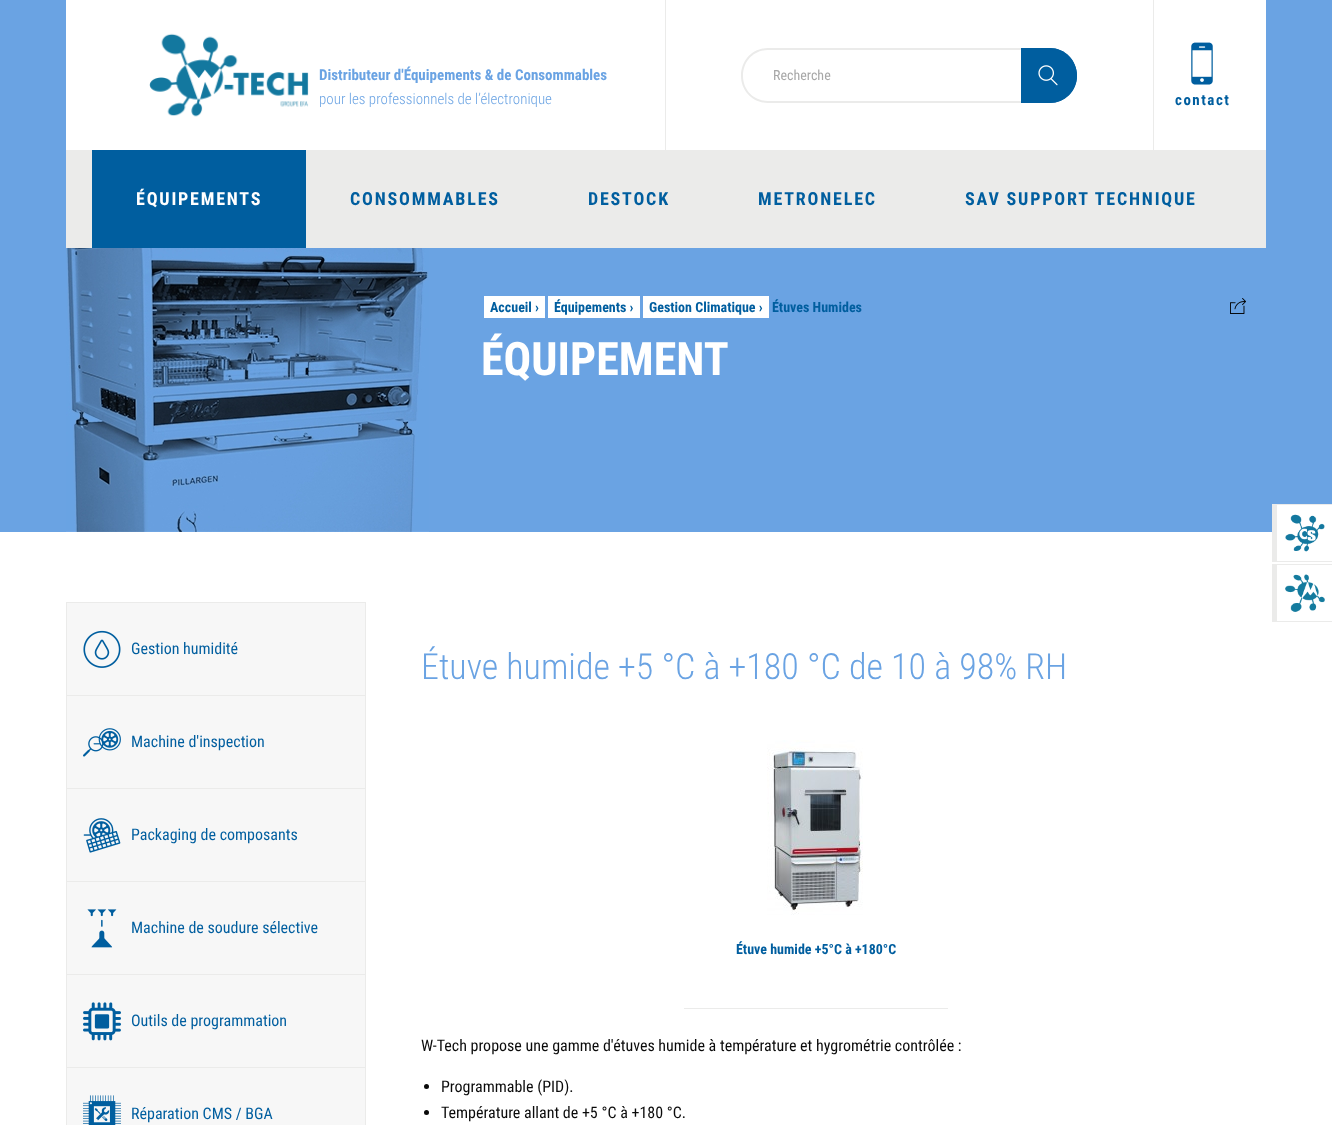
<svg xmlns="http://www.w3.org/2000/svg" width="1332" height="1125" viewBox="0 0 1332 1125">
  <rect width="100%" height="100%" fill="#6aa3e3"/>
  <rect x="66" y="0" width="1200" height="150" fill="#ffffff"/>
  <rect x="665" y="0" width="1" height="150" fill="#ebebea"/>
  <image x="149" y="33" width="160" height="84" href="img1.png"/>
  <text x="319" y="80" font-family="Roboto Condensed" font-size="15" font-weight="bold" fill="#6aa3e3">Distributeur d'Équipements &amp; de Consommables</text>
  <text x="319" y="104" font-family="Roboto Condensed" font-size="15" font-weight="300" fill="#6aa3e3">pour les professionnels de l’électronique</text>
  <rect x="1153" y="0" width="1" height="150" fill="#ebebea"/>
  <path d="M768 48H1021V103H768C753 103 741 91 741 76C741 60 753 48 768 48ZM768 50H1021V101H768C754 101 743 90 743 76C743 61 754 50 768 50Z" fill="#ebebea" fill-rule="evenodd"/>
  <text x="773" y="80" font-family="Roboto Condensed" font-size="14" fill="#a7a7a7">Recherche</text>
  <path d="M1021 48H1049.5C1064.5 48 1077 60.5 1077 75.5C1077 90.5 1064.5 103 1049.5 103H1021Z" fill="#005e9f"/>
  <path d="M1021 48H1050C1065 48 1077 60 1077 76C1077 91 1065 103 1050 103H1021ZM1021 50H1050C1064 50 1075 61 1075 76C1075 90 1064 101 1050 101H1021Z" fill="#005e9f" fill-rule="evenodd"/>
  <image x="1038" y="65" width="20" height="21" href="img2.png"/>
  <image x="1191" y="42" width="22" height="43" href="img3.png"/>
  <text x="1175" y="105" font-family="Roboto Condensed" font-size="15" font-weight="bold" letter-spacing="1.5" fill="#005e9f">contact</text>
  <rect x="66" y="150" width="1200" height="98" fill="#ebebea"/>
  <rect x="92" y="150" width="214" height="98" fill="#005e9f"/>
  <text x="136" y="205" font-family="Roboto Condensed" font-size="18" font-weight="bold" letter-spacing="1.8" fill="#ffffff">ÉQUIPEMENTS</text>
  <text x="350" y="205" font-family="Roboto Condensed" font-size="18" font-weight="bold" letter-spacing="1.8" fill="#005e9f">CONSOMMABLES</text>
  <text x="588" y="205" font-family="Roboto Condensed" font-size="18" font-weight="bold" letter-spacing="1.8" fill="#005e9f">DESTOCK</text>
  <text x="758" y="205" font-family="Roboto Condensed" font-size="18" font-weight="bold" letter-spacing="1.8" fill="#005e9f">METRONELEC</text>
  <text x="965" y="205" font-family="Roboto Condensed" font-size="18" font-weight="bold" letter-spacing="1.8" fill="#005e9f">SAV SUPPORT TECHNIQUE</text>
  <image x="66" y="248" width="363" height="284" href="img4.png"/>
  <rect x="484" y="296" width="61" height="22" fill="#ffffff"/>
  <text x="490" y="312" font-family="Roboto Condensed" font-size="14" font-weight="bold" fill="#005e9f">Accueil ›</text>
  <rect x="548" y="296" width="92" height="22" fill="#ffffff"/>
  <text x="554" y="312" font-family="Roboto Condensed" font-size="14" font-weight="bold" fill="#005e9f">Équipements ›</text>
  <rect x="643" y="296" width="126" height="22" fill="#ffffff"/>
  <text x="649" y="312" font-family="Roboto Condensed" font-size="14" font-weight="bold" fill="#005e9f">Gestion Climatique ›</text>
  <text x="772" y="312" font-family="Roboto Condensed" font-size="14" font-weight="bold" fill="#005e9f">Étuves Humides</text>
  <image x="1230" y="298" width="16" height="16" href="img5.png"/>
  <text x="481" y="375" font-family="Roboto Condensed" font-size="46" font-weight="bold" fill="#ffffff">ÉQUIPEMENT</text>
  <rect x="0" y="532" width="1332" height="593" fill="#ffffff"/>
  <rect x="67" y="603" width="298" height="522" fill="#f7f7f7"/>
  <rect x="66.5" y="602.5" width="299" height="93" fill="none" stroke="#ebebea"/>
  <image x="83" y="630" width="38" height="38" href="img6.png"/>
  <text x="131" y="654" font-family="Roboto Condensed" font-size="16" fill="#005e9f">Gestion humidité</text>
  <rect x="365" y="696" width="1" height="429" fill="#ebebea"/>
  <rect x="66" y="788" width="300" height="1" fill="#ebebea"/>
  <rect x="66" y="696" width="1" height="93" fill="#ebebea"/>
  <image x="83" y="728" width="38" height="29" href="img7.png"/>
  <text x="131" y="747" font-family="Roboto Condensed" font-size="16" fill="#005e9f">Machine d'inspection</text>
  <rect x="66" y="881" width="300" height="1" fill="#ebebea"/>
  <rect x="66" y="789" width="1" height="93" fill="#ebebea"/>
  <image x="83" y="818" width="38" height="35" href="img8.png"/>
  <text x="131" y="840" font-family="Roboto Condensed" font-size="16" fill="#005e9f">Packaging de composants</text>
  <rect x="66" y="974" width="300" height="1" fill="#ebebea"/>
  <rect x="66" y="882" width="1" height="93" fill="#ebebea"/>
  <image x="87" y="909" width="30" height="39" href="img9.png"/>
  <text x="131" y="933" font-family="Roboto Condensed" font-size="16" fill="#005e9f">Machine de soudure sélective</text>
  <rect x="66" y="1067" width="300" height="1" fill="#ebebea"/>
  <rect x="66" y="975" width="1" height="150" fill="#ebebea"/>
  <image x="83" y="1002" width="38" height="39" href="img10.png"/>
  <text x="131" y="1026" font-family="Roboto Condensed" font-size="16" fill="#005e9f">Outils de programmation</text>
  <image x="83" y="1095" width="38" height="30" href="img11.png"/>
  <text x="131" y="1119" font-family="Roboto Condensed" font-size="16" fill="#005e9f">Réparation CMS / BGA</text>
  <text x="421" y="679" font-family="Roboto Condensed" font-size="36" font-weight="300" fill="#6aa3e3">Étuve humide +5 °C à +180 °C de 10 à 98% RH</text>
  <rect x="684" y="1008" width="264" height="1" fill="#ebebea"/>
  <image x="767" y="740" width="96" height="175" href="img12.png"/>
  <text x="736" y="954" font-family="Roboto Condensed" font-size="14" font-weight="bold" fill="#005e9f">Étuve humide +5°C à +180°C</text>
  <text x="421" y="1051" font-family="Roboto Condensed" font-size="16" fill="#0a0a0a">W-Tech propose une gamme d'étuves humide à température et hygrométrie contrôlée :</text>
  <circle cx="426.5" cy="1086.5" r="2.5" fill="#0a0a0a"/>
  <text x="441" y="1092" font-family="Roboto Condensed" font-size="16" fill="#0a0a0a">Programmable (PID).</text>
  <circle cx="426.5" cy="1112.5" r="2.5" fill="#0a0a0a"/>
  <text x="441" y="1118" font-family="Roboto Condensed" font-size="16" fill="#0a0a0a">Température allant de +5 °C à +180 °C.</text>
  <rect x="1277" y="505" width="55" height="27" fill="#ffffff"/>
  <rect x="1272" y="504" width="60" height="1" fill="#ebebea"/>
  <rect x="1272" y="561" width="60" height="1" fill="#ebebea"/>
  <rect x="1272" y="504" width="5" height="58" fill="#ebebea"/>
  <image x="1285" y="514" width="40" height="38" href="img13.png"/>
  <rect x="1272" y="564" width="60" height="1" fill="#ebebea"/>
  <rect x="1272" y="621" width="60" height="1" fill="#ebebea"/>
  <rect x="1272" y="564" width="5" height="58" fill="#ebebea"/>
  <image x="1285" y="574" width="40" height="38" href="img14.png"/>
</svg>
